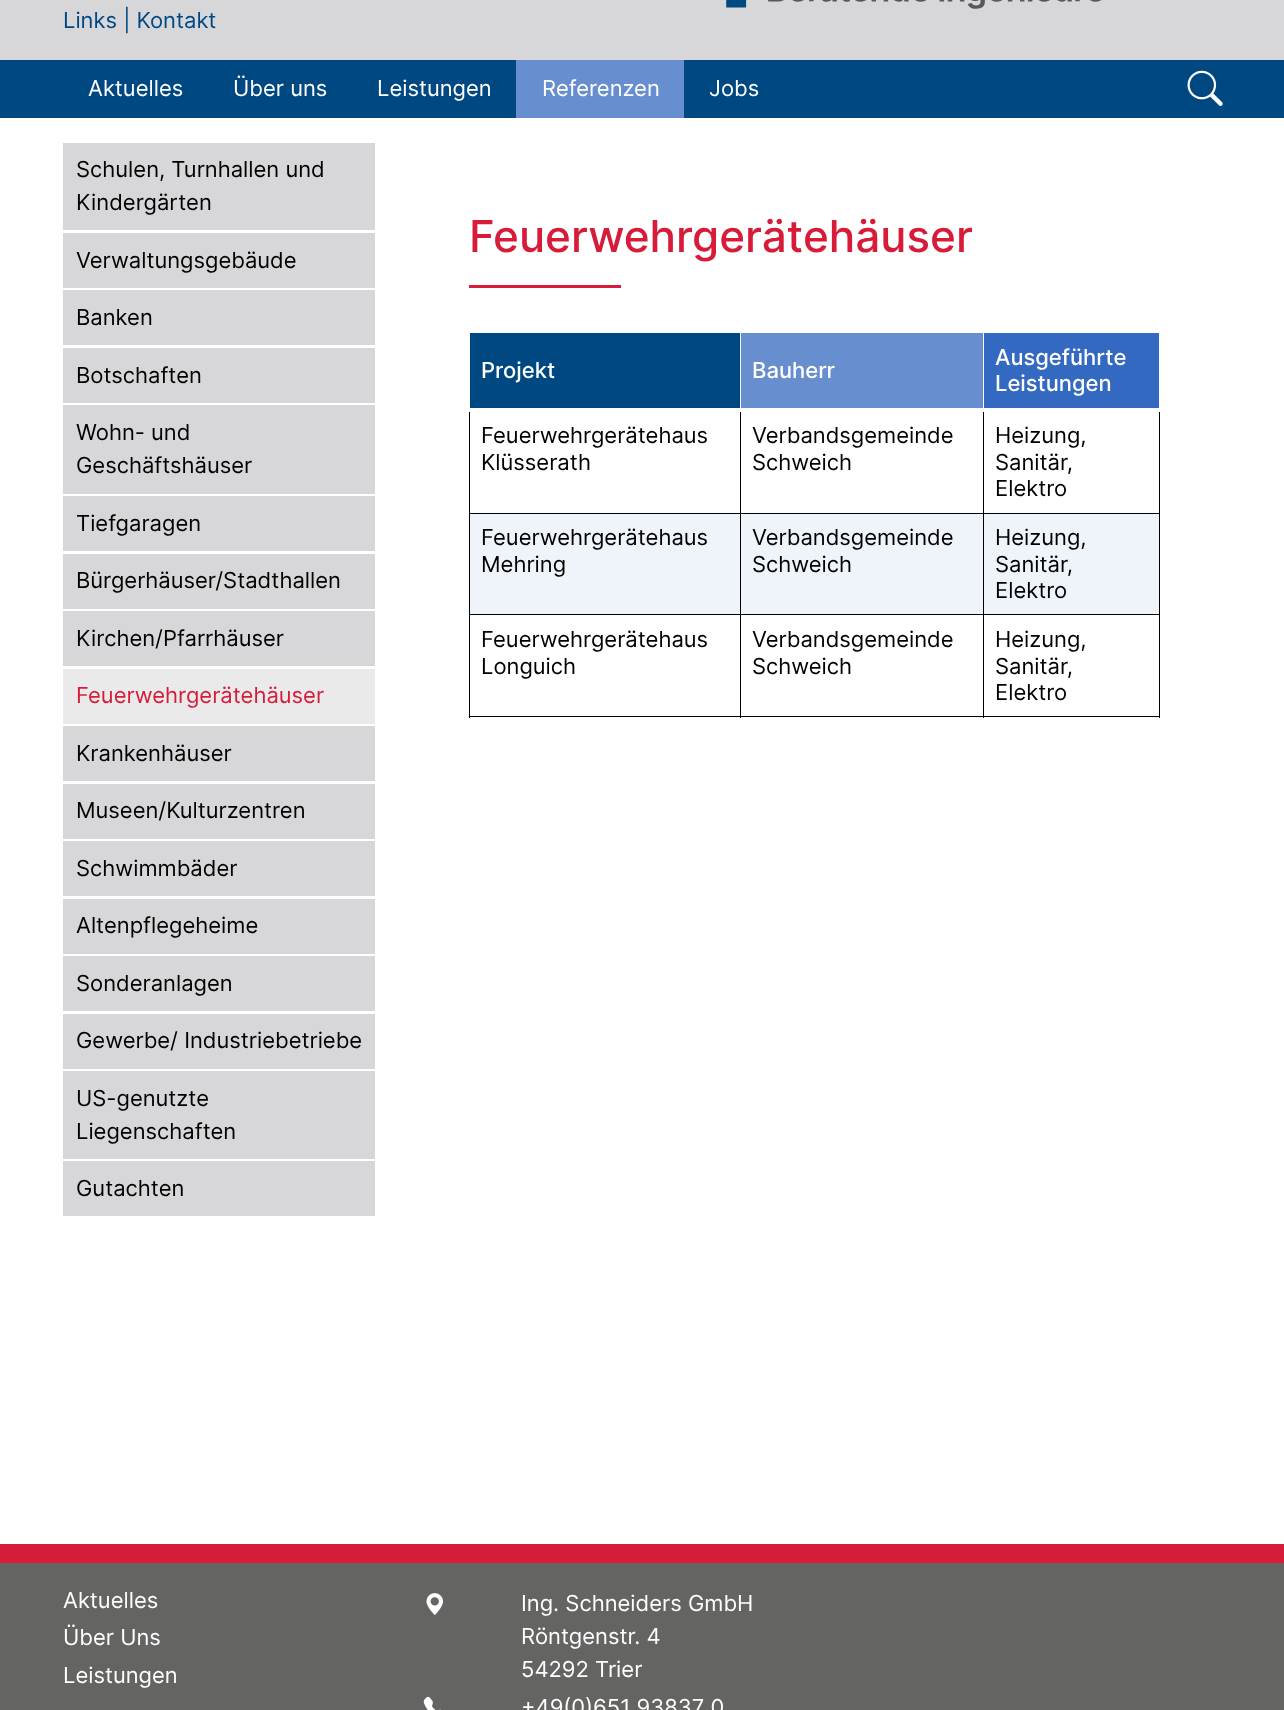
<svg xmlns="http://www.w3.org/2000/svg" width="1284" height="1710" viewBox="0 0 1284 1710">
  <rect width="100%" height="100%" fill="#ffffff"/>
  <rect x="0" y="0" width="1284" height="60" fill="#d7d7d9"/>
  <image x="726" y="0" width="376" height="9" href="img1.png"/>
  <text x="63" y="28" font-family="Inter" font-size="22" fill="#004882">Links | Kontakt</text>
  <rect x="0" y="60" width="1284" height="58" fill="#004882"/>
  <text x="88" y="96" font-family="Inter" font-size="22" fill="#ffffff">Aktuelles</text>
  <text x="233" y="96" font-family="Inter" font-size="22" fill="#ffffff">Über uns</text>
  <text x="377" y="96" font-family="Inter" font-size="22" fill="#ffffff">Leistungen</text>
  <rect x="516" y="60" width="168" height="58" fill="#678ece"/>
  <text x="542" y="96" font-family="Inter" font-size="22" fill="#ffffff">Referenzen</text>
  <text x="709" y="96" font-family="Inter" font-size="22" fill="#ffffff">Jobs</text>
  <image x="1187" y="70" width="36" height="36" href="img2.png"/>
  <rect x="63" y="143" width="312" height="926" fill="#d7d7d9"/>
  <rect x="63" y="230" width="312" height="3" fill="#ffffff"/>
  <text x="76" y="177" font-family="Inter" font-size="22" fill="#000000">Schulen, Turnhallen und</text>
  <text x="76" y="210" font-family="Inter" font-size="22" fill="#000000">Kindergärten</text>
  <rect x="63" y="288" width="312" height="2" fill="#ffffff"/>
  <text x="76" y="268" font-family="Inter" font-size="22" fill="#000000">Verwaltungsgebäude</text>
  <rect x="63" y="345" width="312" height="3" fill="#ffffff"/>
  <text x="76" y="325" font-family="Inter" font-size="22" fill="#000000">Banken</text>
  <rect x="63" y="403" width="312" height="2" fill="#ffffff"/>
  <text x="76" y="383" font-family="Inter" font-size="22" fill="#000000">Botschaften</text>
  <rect x="63" y="494" width="312" height="2" fill="#ffffff"/>
  <text x="76" y="440" font-family="Inter" font-size="22" fill="#000000">Wohn- und</text>
  <text x="76" y="473" font-family="Inter" font-size="22" fill="#000000">Geschäftshäuser</text>
  <rect x="63" y="551" width="312" height="3" fill="#ffffff"/>
  <text x="76" y="531" font-family="Inter" font-size="22" fill="#000000">Tiefgaragen</text>
  <rect x="63" y="609" width="312" height="2" fill="#ffffff"/>
  <text x="76" y="588" font-family="Inter" font-size="22" fill="#000000">Bürgerhäuser/Stadthallen</text>
  <rect x="63" y="666" width="312" height="3" fill="#ffffff"/>
  <text x="76" y="646" font-family="Inter" font-size="22" fill="#000000">Kirchen/Pfarrhäuser</text>
  <rect x="63" y="669" width="312" height="55" fill="#eaeaea"/>
  <rect x="63" y="724" width="312" height="2" fill="#ffffff"/>
  <text x="76" y="703" font-family="Inter" font-size="22" fill="#d71c3a">Feuerwehrgerätehäuser</text>
  <rect x="63" y="781" width="312" height="3" fill="#ffffff"/>
  <text x="76" y="761" font-family="Inter" font-size="22" fill="#000000">Krankenhäuser</text>
  <rect x="63" y="839" width="312" height="2" fill="#ffffff"/>
  <text x="76" y="818" font-family="Inter" font-size="22" fill="#000000">Museen/Kulturzentren</text>
  <rect x="63" y="896" width="312" height="3" fill="#ffffff"/>
  <text x="76" y="876" font-family="Inter" font-size="22" fill="#000000">Schwimmbäder</text>
  <rect x="63" y="954" width="312" height="2" fill="#ffffff"/>
  <text x="76" y="933" font-family="Inter" font-size="22" fill="#000000">Altenpflegeheime</text>
  <rect x="63" y="1011" width="312" height="3" fill="#ffffff"/>
  <text x="76" y="991" font-family="Inter" font-size="22" fill="#000000">Sonderanlagen</text>
  <text x="76" y="1048" font-family="Inter" font-size="22" fill="#000000">Gewerbe/ Industriebetriebe</text>
  <rect x="63" y="1071" width="312" height="88" fill="#d7d7d9"/>
  <text x="76" y="1106" font-family="Inter" font-size="22" fill="#000000">US-genutzte</text>
  <text x="76" y="1139" font-family="Inter" font-size="22" fill="#000000">Liegenschaften</text>
  <rect x="63" y="1161" width="312" height="55" fill="#d7d7d9"/>
  <text x="76" y="1196" font-family="Inter" font-size="22" fill="#000000">Gutachten</text>
  <text x="469" y="252" font-family="Inter" font-size="44" font-weight="500" fill="#d71c3a">Feuerwehrgerätehäuser</text>
  <rect x="469" y="285" width="152" height="3" fill="#d71c3a"/>
  <rect x="983" y="513" width="177" height="1" fill="#000000"/>
  <rect x="470" y="514" width="689" height="100" fill="#eff3fa"/>
  <rect x="983" y="614" width="177" height="1" fill="#000000"/>
  <rect x="1159" y="614" width="1" height="104" fill="#000000"/>
  <rect x="983" y="716" width="177" height="1" fill="#000000"/>
  <rect x="983" y="614" width="1" height="104" fill="#000000"/>
  <rect x="740" y="614" width="244" height="1" fill="#000000"/>
  <rect x="983" y="513" width="1" height="102" fill="#000000"/>
  <rect x="740" y="513" width="244" height="1" fill="#000000"/>
  <rect x="740" y="716" width="244" height="1" fill="#000000"/>
  <rect x="740" y="614" width="1" height="104" fill="#000000"/>
  <rect x="469" y="614" width="272" height="1" fill="#000000"/>
  <rect x="740" y="513" width="1" height="102" fill="#000000"/>
  <rect x="469" y="513" width="272" height="1" fill="#000000"/>
  <rect x="740" y="409" width="1" height="105" fill="#000000"/>
  <rect x="740" y="409" width="1" height="1" fill="#ffffff"/>
  <rect x="1159" y="409" width="1" height="206" fill="#000000"/>
  <rect x="1159" y="409" width="1" height="1" fill="#ffffff"/>
  <rect x="983" y="409" width="1" height="105" fill="#000000"/>
  <rect x="983" y="409" width="1" height="1" fill="#ffffff"/>
  <rect x="469" y="716" width="272" height="1" fill="#000000"/>
  <rect x="469" y="614" width="1" height="104" fill="#000000"/>
  <rect x="469" y="409" width="1" height="206" fill="#000000"/>
  <rect x="468" y="409" width="693" height="3" fill="#ffffff"/>
  <rect x="470" y="333" width="270" height="75" fill="#004882"/>
  <text x="481" y="378" font-family="Inter" font-size="22" font-weight="500" fill="#ffffff">Projekt</text>
  <rect x="741" y="333" width="242" height="75" fill="#678ece"/>
  <text x="752" y="378" font-family="Inter" font-size="22" font-weight="500" fill="#ffffff">Bauherr</text>
  <rect x="984" y="333" width="175" height="75" fill="#3469c1"/>
  <text x="995" y="365" font-family="Inter" font-size="22" font-weight="500" fill="#ffffff">Ausgeführte</text>
  <text x="995" y="391" font-family="Inter" font-size="22" font-weight="500" fill="#ffffff">Leistungen</text>
  <text x="481" y="443" font-family="Inter" font-size="22" fill="#000000">Feuerwehrgerätehaus</text>
  <text x="481" y="470" font-family="Inter" font-size="22" fill="#000000">Klüsserath</text>
  <text x="752" y="443" font-family="Inter" font-size="22" fill="#000000">Verbandsgemeinde</text>
  <text x="752" y="470" font-family="Inter" font-size="22" fill="#000000">Schweich</text>
  <text x="995" y="443" font-family="Inter" font-size="22" fill="#000000">Heizung,</text>
  <text x="995" y="470" font-family="Inter" font-size="22" fill="#000000">Sanitär,</text>
  <text x="995" y="496" font-family="Inter" font-size="22" fill="#000000">Elektro</text>
  <text x="481" y="545" font-family="Inter" font-size="22" fill="#000000">Feuerwehrgerätehaus</text>
  <text x="481" y="572" font-family="Inter" font-size="22" fill="#000000">Mehring</text>
  <text x="752" y="545" font-family="Inter" font-size="22" fill="#000000">Verbandsgemeinde</text>
  <text x="752" y="572" font-family="Inter" font-size="22" fill="#000000">Schweich</text>
  <text x="995" y="545" font-family="Inter" font-size="22" fill="#000000">Heizung,</text>
  <text x="995" y="572" font-family="Inter" font-size="22" fill="#000000">Sanitär,</text>
  <text x="995" y="598" font-family="Inter" font-size="22" fill="#000000">Elektro</text>
  <text x="481" y="647" font-family="Inter" font-size="22" fill="#000000">Feuerwehrgerätehaus</text>
  <text x="481" y="674" font-family="Inter" font-size="22" fill="#000000">Longuich</text>
  <text x="752" y="647" font-family="Inter" font-size="22" fill="#000000">Verbandsgemeinde</text>
  <text x="752" y="674" font-family="Inter" font-size="22" fill="#000000">Schweich</text>
  <text x="995" y="647" font-family="Inter" font-size="22" fill="#000000">Heizung,</text>
  <text x="995" y="674" font-family="Inter" font-size="22" fill="#000000">Sanitär,</text>
  <text x="995" y="700" font-family="Inter" font-size="22" fill="#000000">Elektro</text>
  <rect x="0" y="1563" width="1284" height="147" fill="#646463"/>
  <rect x="0" y="1544" width="1284" height="19" fill="#d71c3a"/>
  <text x="63" y="1608" font-family="Inter" font-size="22" fill="#ffffff">Aktuelles</text>
  <text x="63" y="1645" font-family="Inter" font-size="22" fill="#ffffff">Über Uns</text>
  <text x="63" y="1683" font-family="Inter" font-size="22" fill="#ffffff">Leistungen</text>
  <image x="426" y="1593" width="17" height="22" href="img3.png"/>
  <text x="521" y="1611" font-family="Inter" font-size="22" fill="#ffffff">Ing. Schneiders GmbH</text>
  <text x="521" y="1644" font-family="Inter" font-size="22" fill="#ffffff">Röntgenstr. 4</text>
  <text x="521" y="1677" font-family="Inter" font-size="22" fill="#ffffff">54292 Trier</text>
  <image x="423" y="1696" width="18" height="14" href="img4.png"/>
  <text x="521" y="1715" font-family="Inter" font-size="22" fill="#ffffff">+49(0)651 93837 0</text>
</svg>
